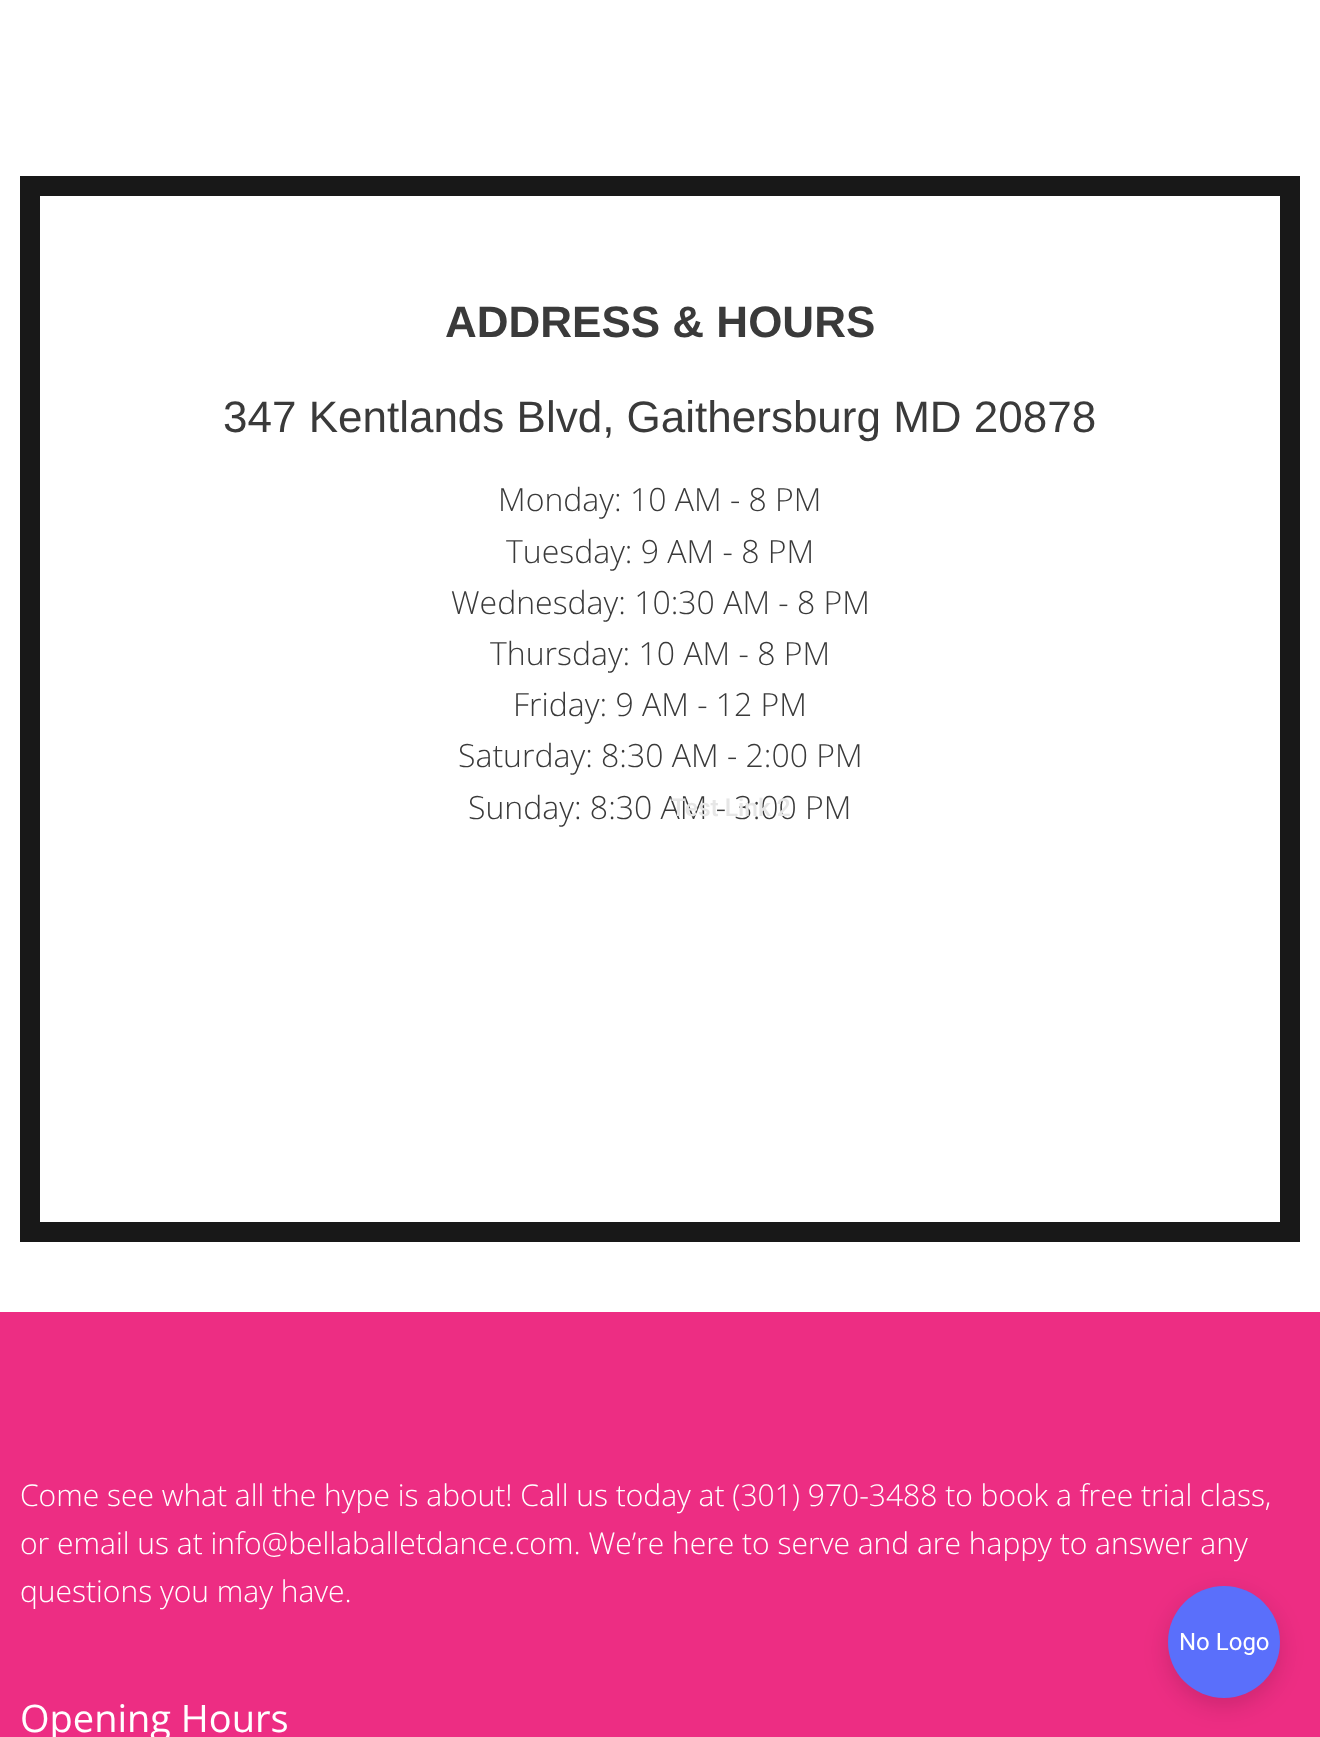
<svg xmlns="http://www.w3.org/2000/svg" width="1320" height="1737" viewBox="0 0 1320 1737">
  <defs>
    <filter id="blur1" x="-50%" y="-200%" width="200%" height="500%"><feGaussianBlur stdDeviation="12"/></filter>
  </defs>
  <rect width="100%" height="100%" fill="#ffffff"/>
  <rect x="30" y="186" width="1260" height="1046" fill="none" stroke="#181818" stroke-width="20"/>
  <text x="445" y="337" font-family="Liberation Sans" font-size="44" font-weight="bold" fill="#3a3a3a">ADDRESS &amp; HOURS</text>
  <text x="223" y="432" font-family="Liberation Sans" font-size="44" fill="#3a3a3a">347 Kentlands Blvd, Gaithersburg MD 20878</text>
  <text x="498" y="511" font-family="Open Sans" font-size="32" font-weight="300" fill="#3a3a3a">Monday: 10 AM - 8 PM</text>
  <text x="506" y="563" font-family="Open Sans" font-size="32" font-weight="300" fill="#3a3a3a">Tuesday: 9 AM - 8 PM</text>
  <text x="451" y="614" font-family="Open Sans" font-size="32" font-weight="300" fill="#3a3a3a">Wednesday: 10:30 AM - 8 PM</text>
  <text x="490" y="665" font-family="Open Sans" font-size="32" font-weight="300" fill="#3a3a3a">Thursday: 10 AM - 8 PM</text>
  <text x="513" y="716" font-family="Open Sans" font-size="32" font-weight="300" fill="#3a3a3a">Friday: 9 AM - 12 PM</text>
  <text x="458" y="767" font-family="Open Sans" font-size="32" font-weight="300" fill="#3a3a3a">Saturday: 8:30 AM - 2:00 PM</text>
  <text x="468" y="819" font-family="Open Sans" font-size="32" font-weight="300" fill="#3a3a3a">Sunday: 8:30 AM - 3:00 PM</text>
  <rect x="0" y="1312" width="1320" height="425" fill="#ed2d83"/>
  <text x="20" y="1506" font-family="Open Sans" font-size="30" font-weight="300" fill="#ffffff">Come see what all the hype is about! Call us today at (301) 970-3488 to book a free trial class,</text>
  <text x="20" y="1554" font-family="Open Sans" font-size="30" font-weight="300" fill="#ffffff">or email us at info@bellaballetdance.com. We’re here to serve and are happy to answer any</text>
  <text x="20" y="1602" font-family="Open Sans" font-size="30" font-weight="300" fill="#ffffff">questions you may have.</text>
  <text x="20" y="1732" font-family="Open Sans" font-size="38" fill="#ffffff">Opening Hours</text>
  <text x="671" y="816" font-family="Roboto" font-size="24.5" font-weight="500" fill="#e6e6e6">Test Link 2</text>
  <rect x="1168" y="1594" width="112" height="112" rx="56" fill="#000000" fill-opacity="0.15" filter="url(#blur1)"/>
  <circle cx="1224" cy="1642" r="56" fill="#5a6ffb"/>
  <text x="1179" y="1650" font-family="Roboto" font-size="24" fill="#ffffff">No Logo</text>
</svg>
